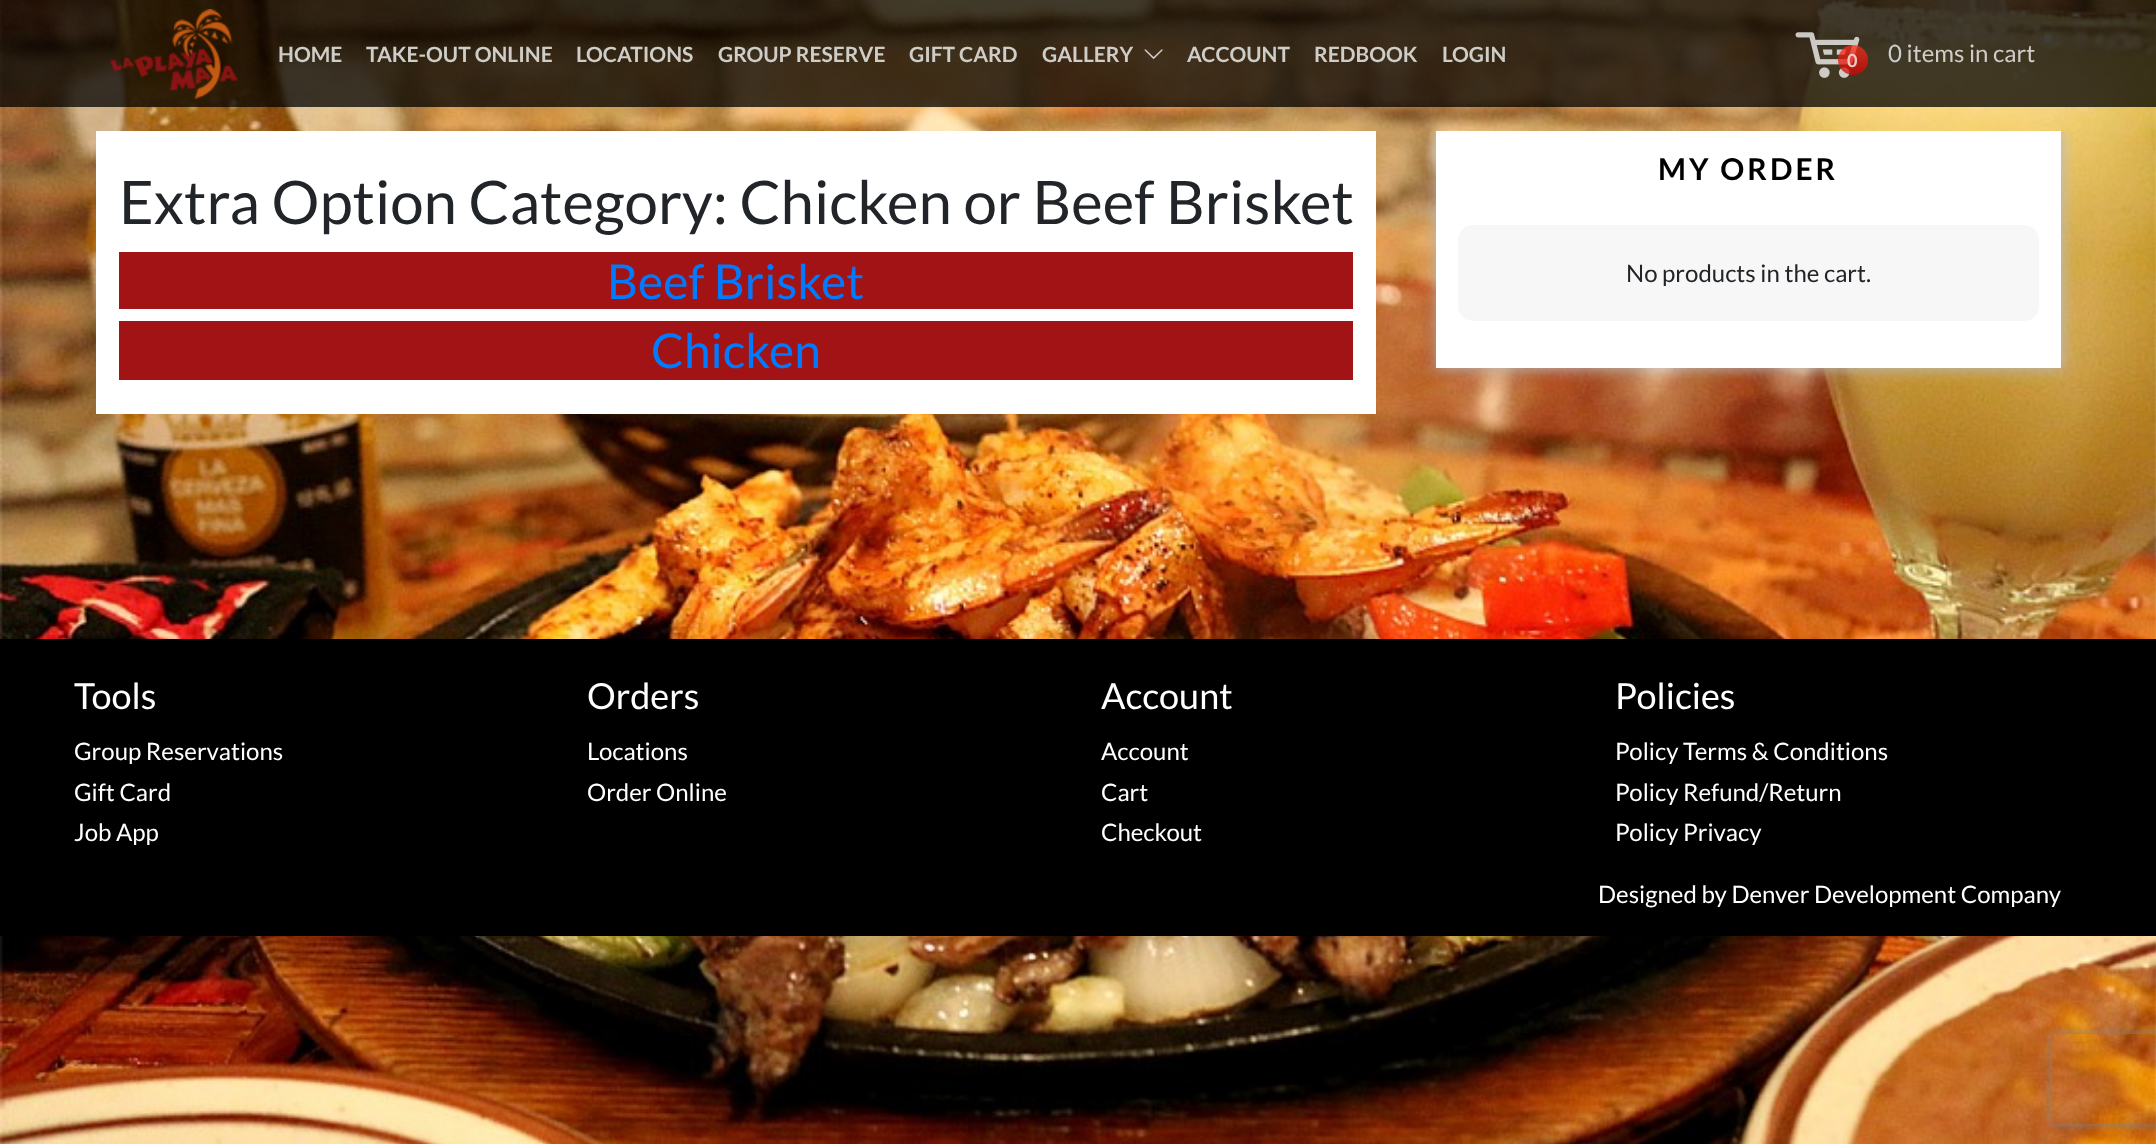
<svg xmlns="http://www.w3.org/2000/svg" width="2156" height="1144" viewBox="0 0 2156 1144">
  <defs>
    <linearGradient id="g1" gradientUnits="userSpaceOnUse" x1="1853" y1="45" x2="1853" y2="75"><stop offset="0" stop-color="#ff3019" stop-opacity="0.75"/><stop offset="1" stop-color="#cf0404" stop-opacity="0.75"/></linearGradient>
    <clipPath id="clip1"><rect x="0" y="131" width="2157" height="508"/></clipPath>
    <filter id="blur1" x="-50%" y="-200%" width="200%" height="500%"><feGaussianBlur stdDeviation="7.5"/></filter>
    <clipPath id="clip2"><path d="M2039 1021H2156V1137H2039ZM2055 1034H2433C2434.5 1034 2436 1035.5 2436 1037V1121C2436 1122.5 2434.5 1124 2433 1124H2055C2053.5 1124 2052 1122.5 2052 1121V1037C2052 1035.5 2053.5 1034 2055 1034Z" clip-rule="evenodd"/></clipPath>
    <filter id="blur2" x="-50%" y="-200%" width="200%" height="500%"><feGaussianBlur stdDeviation="4"/></filter>
  </defs>
  <rect width="100%" height="100%" fill="#ffffff"/>
  <image x="0" y="0" width="2156" height="1144" href="img1.png"/>
  <rect x="0" y="0" width="2156" height="107" fill="#000000" fill-opacity="0.75"/>
  <image x="109" y="9" width="130" height="90" href="img2.png"/>
  <text x="278" y="62" font-family="Lato" font-size="21" font-weight="bold" fill="#cfcdc8">HOME</text>
  <text x="366" y="62" font-family="Lato" font-size="21" font-weight="bold" fill="#cfcdc8">TAKE-OUT ONLINE</text>
  <text x="576" y="62" font-family="Lato" font-size="21" font-weight="bold" fill="#cfcdc8">LOCATIONS</text>
  <text x="718" y="62" font-family="Lato" font-size="21" font-weight="bold" fill="#cfcdc8">GROUP RESERVE</text>
  <text x="909" y="62" font-family="Lato" font-size="21" font-weight="bold" fill="#cfcdc8">GIFT CARD</text>
  <text x="1042" y="62" font-family="Lato" font-size="21" font-weight="bold" fill="#cfcdc8">GALLERY</text>
  <image x="1144" y="49" width="19" height="10" href="img3.png"/>
  <text x="1187" y="62" font-family="Lato" font-size="21" font-weight="bold" fill="#cfcdc8">ACCOUNT</text>
  <text x="1314" y="62" font-family="Lato" font-size="21" font-weight="bold" fill="#cfcdc8">REDBOOK</text>
  <text x="1442" y="62" font-family="Lato" font-size="21" font-weight="bold" fill="#cfcdc8">LOGIN</text>
  <image x="1795" y="32" width="65" height="46" href="img4.png"/>
  <circle cx="1853" cy="60" r="15" fill="url(#g1)"/>
  <text x="1847" y="67" font-family="Lato" font-size="18" font-weight="bold" fill="#f2cbc8">0</text>
  <text x="1888" y="62" font-family="Lato" font-size="24" fill="#cfcdc8">0 items in cart</text>
  <rect x="96" y="131" width="1280" height="283" fill="#ffffff"/>
  <text x="119" y="224" font-family="Lato" font-size="60" fill="#212529">Extra Option Category: Chicken or Beef Brisket</text>
  <rect x="119" y="252" width="1234" height="57" fill="#a21316"/>
  <text x="607" y="299" font-family="Lato" font-size="48" fill="#007bff">Beef Brisket</text>
  <rect x="119" y="321" width="1234" height="59" fill="#a21316"/>
  <text x="651" y="368" font-family="Lato" font-size="48" fill="#007bff">Chicken</text>
  <g clip-path="url(#clip1)">
    <rect x="1437" y="132" width="626" height="237" fill="#bbbbbb" filter="url(#blur1)"/>
  </g>
  <rect x="1436" y="131" width="625" height="237" fill="#ffffff"/>
  <text x="1658" y="180" font-family="Lato" font-size="30" font-weight="bold" letter-spacing="3" fill="#000000">MY ORDER</text>
  <rect x="1458" y="225" width="581" height="96" rx="15" fill="#f7f7f7"/>
  <text x="1626" y="282" font-family="Lato" font-size="24" fill="#212529">No products in the cart.</text>
  <rect x="0" y="639" width="2156" height="297" fill="#000000"/>
  <text x="74" y="709" font-family="Lato" font-size="36" fill="#ffffff">Tools</text>
  <text x="74" y="760" font-family="Lato" font-size="24" fill="#ffffff">Group Reservations</text>
  <text x="74" y="801" font-family="Lato" font-size="24" fill="#ffffff">Gift Card</text>
  <text x="74" y="841" font-family="Lato" font-size="24" fill="#ffffff">Job App</text>
  <text x="587" y="709" font-family="Lato" font-size="36" fill="#ffffff">Orders</text>
  <text x="587" y="760" font-family="Lato" font-size="24" fill="#ffffff">Locations</text>
  <text x="587" y="801" font-family="Lato" font-size="24" fill="#ffffff">Order Online</text>
  <text x="1101" y="709" font-family="Lato" font-size="36" fill="#ffffff">Account</text>
  <text x="1101" y="760" font-family="Lato" font-size="24" fill="#ffffff">Account</text>
  <text x="1101" y="801" font-family="Lato" font-size="24" fill="#ffffff">Cart</text>
  <text x="1101" y="841" font-family="Lato" font-size="24" fill="#ffffff">Checkout</text>
  <text x="1615" y="709" font-family="Lato" font-size="36" fill="#ffffff">Policies</text>
  <text x="1615" y="760" font-family="Lato" font-size="24" fill="#ffffff">Policy Terms &amp; Conditions</text>
  <text x="1615" y="801" font-family="Lato" font-size="24" fill="#ffffff">Policy Refund/Return</text>
  <text x="1615" y="841" font-family="Lato" font-size="24" fill="#ffffff">Policy Privacy</text>
  <text x="1598" y="903" font-family="Lato" font-size="24" fill="#ffffff">Designed by Denver Development Company</text>
  <g clip-path="url(#clip2)">
    <rect x="2052" y="1034" width="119" height="90" rx="3" fill="#808080" filter="url(#blur2)"/>
  </g>
</svg>
